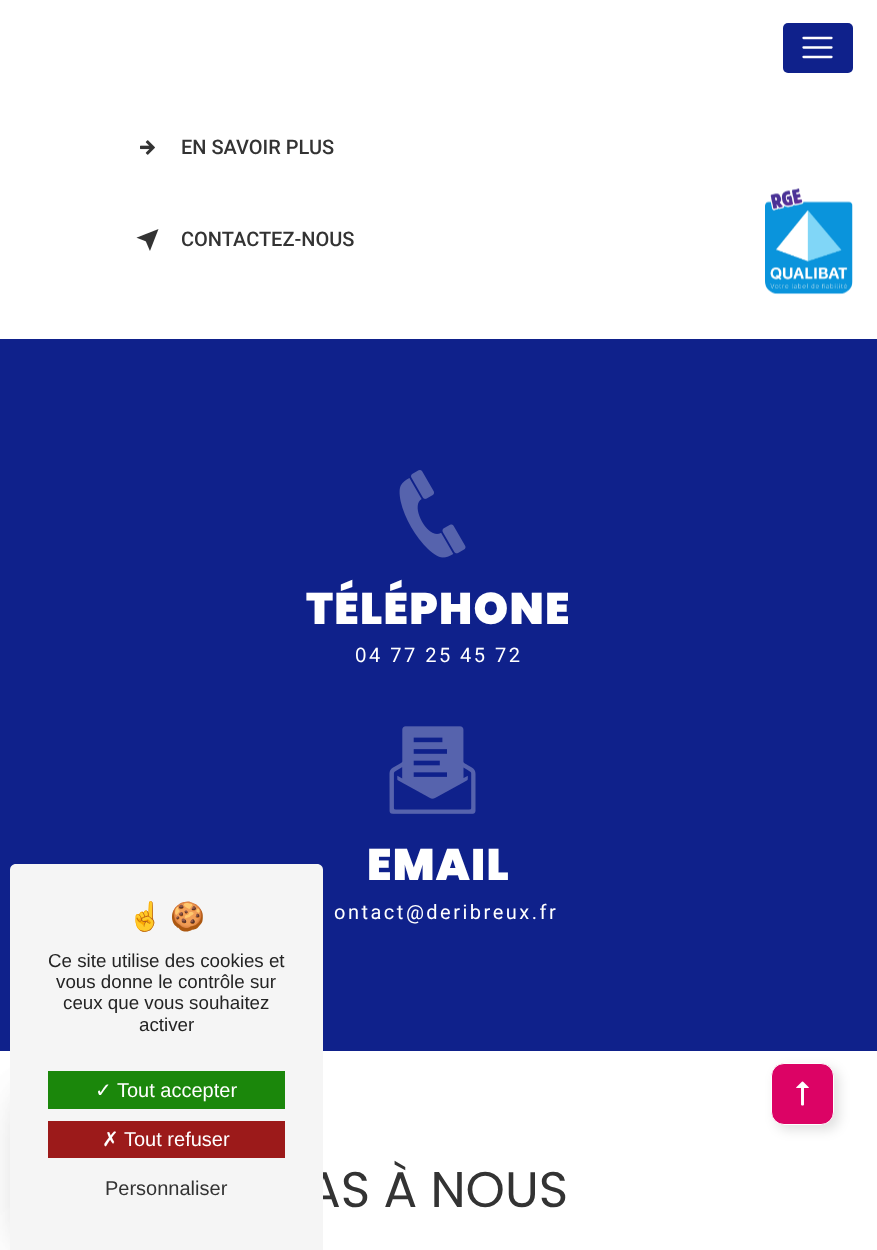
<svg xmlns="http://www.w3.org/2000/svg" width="877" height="1250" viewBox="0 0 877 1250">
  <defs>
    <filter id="blur1" x="-50%" y="-200%" width="200%" height="500%"><feGaussianBlur stdDeviation="19"/></filter>
    <filter id="blur2" x="-50%" y="-200%" width="200%" height="500%"><feGaussianBlur stdDeviation="25"/></filter>
    <filter id="blur3" x="-50%" y="-200%" width="200%" height="500%"><feGaussianBlur stdDeviation="6"/></filter>
  </defs>
  <rect width="100%" height="100%" fill="#ffffff"/>
  <rect x="0" y="339" width="877" height="712" fill="#0f218b"/>
  <text x="307" y="1207" font-family="Poppins" font-size="50" fill="#333333">AS À NOUS</text>
  <rect x="25" y="1095" width="238" height="143" rx="10" fill="#000000" fill-opacity="0.15" filter="url(#blur1)"/>
  <rect x="25" y="1101" width="238" height="143" rx="10" fill="#000000" fill-opacity="0.1" filter="url(#blur2)"/>
  <path d="M16 864H317C320.5 864 323 866.5 323 870V1250H10V870C10 866.5 12.5 864 16 864Z" fill="#f5f5f5"/>
  <text x="128" y="926" font-family="Noto Color Emoji" font-size="28" fill="#242424">☝</text>
  <text x="170" y="926" font-family="Noto Color Emoji" font-size="28" fill="#242424">🍪</text>
  <text x="48" y="967" font-family="Liberation Sans" font-size="18.75" fill="#242424">Ce site utilise des cookies et</text>
  <text x="56" y="988" font-family="Liberation Sans" font-size="18.75" fill="#242424">vous donne le contrôle sur</text>
  <text x="63" y="1009" font-family="Liberation Sans" font-size="18.75" fill="#242424">ceux que vous souhaitez</text>
  <text x="139" y="1031" font-family="Liberation Sans" font-size="18.75" fill="#242424">activer</text>
  <rect x="48" y="1071" width="237" height="38" fill="#1b870b"/>
  <text x="95" y="1097" font-family="DejaVu Sans" font-size="20" fill="#ffffff">✓</text>
  <text x="117" y="1097" font-family="Liberation Sans" font-size="20" fill="#ffffff">Tout accepter</text>
  <rect x="48" y="1121" width="237" height="37" fill="#9c1a1a"/>
  <text x="102" y="1146" font-family="DejaVu Sans" font-size="20" fill="#ffffff">✗</text>
  <text x="124" y="1146" font-family="Liberation Sans" font-size="20" fill="#ffffff">Tout refuser</text>
  <text x="105" y="1195" font-family="Liberation Sans" font-size="20" fill="#333333">Personnaliser</text>
  <rect x="783" y="23" width="70" height="50" rx="5" fill="#0f218b"/>
  <path d="M803.5 38H831.5M803.5 47.5H831.5M803.5 57H831.5" fill="none" stroke="#ffffff" stroke-width="2.3" stroke-linecap="round"/>
  <image x="140" y="140" width="15" height="15" href="img1.png"/>
  <text x="181" y="154" font-family="Roboto" font-size="20" font-weight="500" fill="#333333">EN SAVOIR PLUS</text>
  <image x="136" y="229" width="23" height="22" href="img2.png"/>
  <text x="181" y="246" font-family="Roboto" font-size="20" font-weight="500" fill="#333333">CONTACTEZ-NOUS</text>
  <image x="399" y="470" width="67" height="88" href="img3.png"/>
  <text x="306" y="624" font-family="Poppins" font-size="44" font-weight="900" letter-spacing="1.25" fill="#ffffff">TÉLÉPHONE</text>
  <text x="355" y="662" font-family="Noto Sans" font-size="20" letter-spacing="2.5" fill="#ffffff">0</text>
  <text x="369" y="662" font-family="Roboto" font-size="20" letter-spacing="2.5" fill="#ffffff">4 77 25 45 72</text>
  <image x="389" y="726" width="87" height="88" href="img4.png"/>
  <text x="367" y="880" font-family="Poppins" font-size="44" font-weight="900" letter-spacing="1.25" fill="#ffffff">EMAIL</text>
  <text x="334" y="919" font-family="Roboto" font-size="20" letter-spacing="2.5" fill="#ffffff">ontact@deribreux.fr</text>
  <image x="765" y="188" width="88" height="107" href="img5.png"/>
  <rect x="776" y="1068" width="63" height="62" rx="13" fill="#000000" fill-opacity="0.12" filter="url(#blur3)"/>
  <rect x="771.5" y="1063.5" width="62" height="61" rx="12.5" fill="#dc0365" stroke="#ffffff"/>
  <image x="796" y="1081" width="13" height="25" href="img6.png"/>
</svg>
